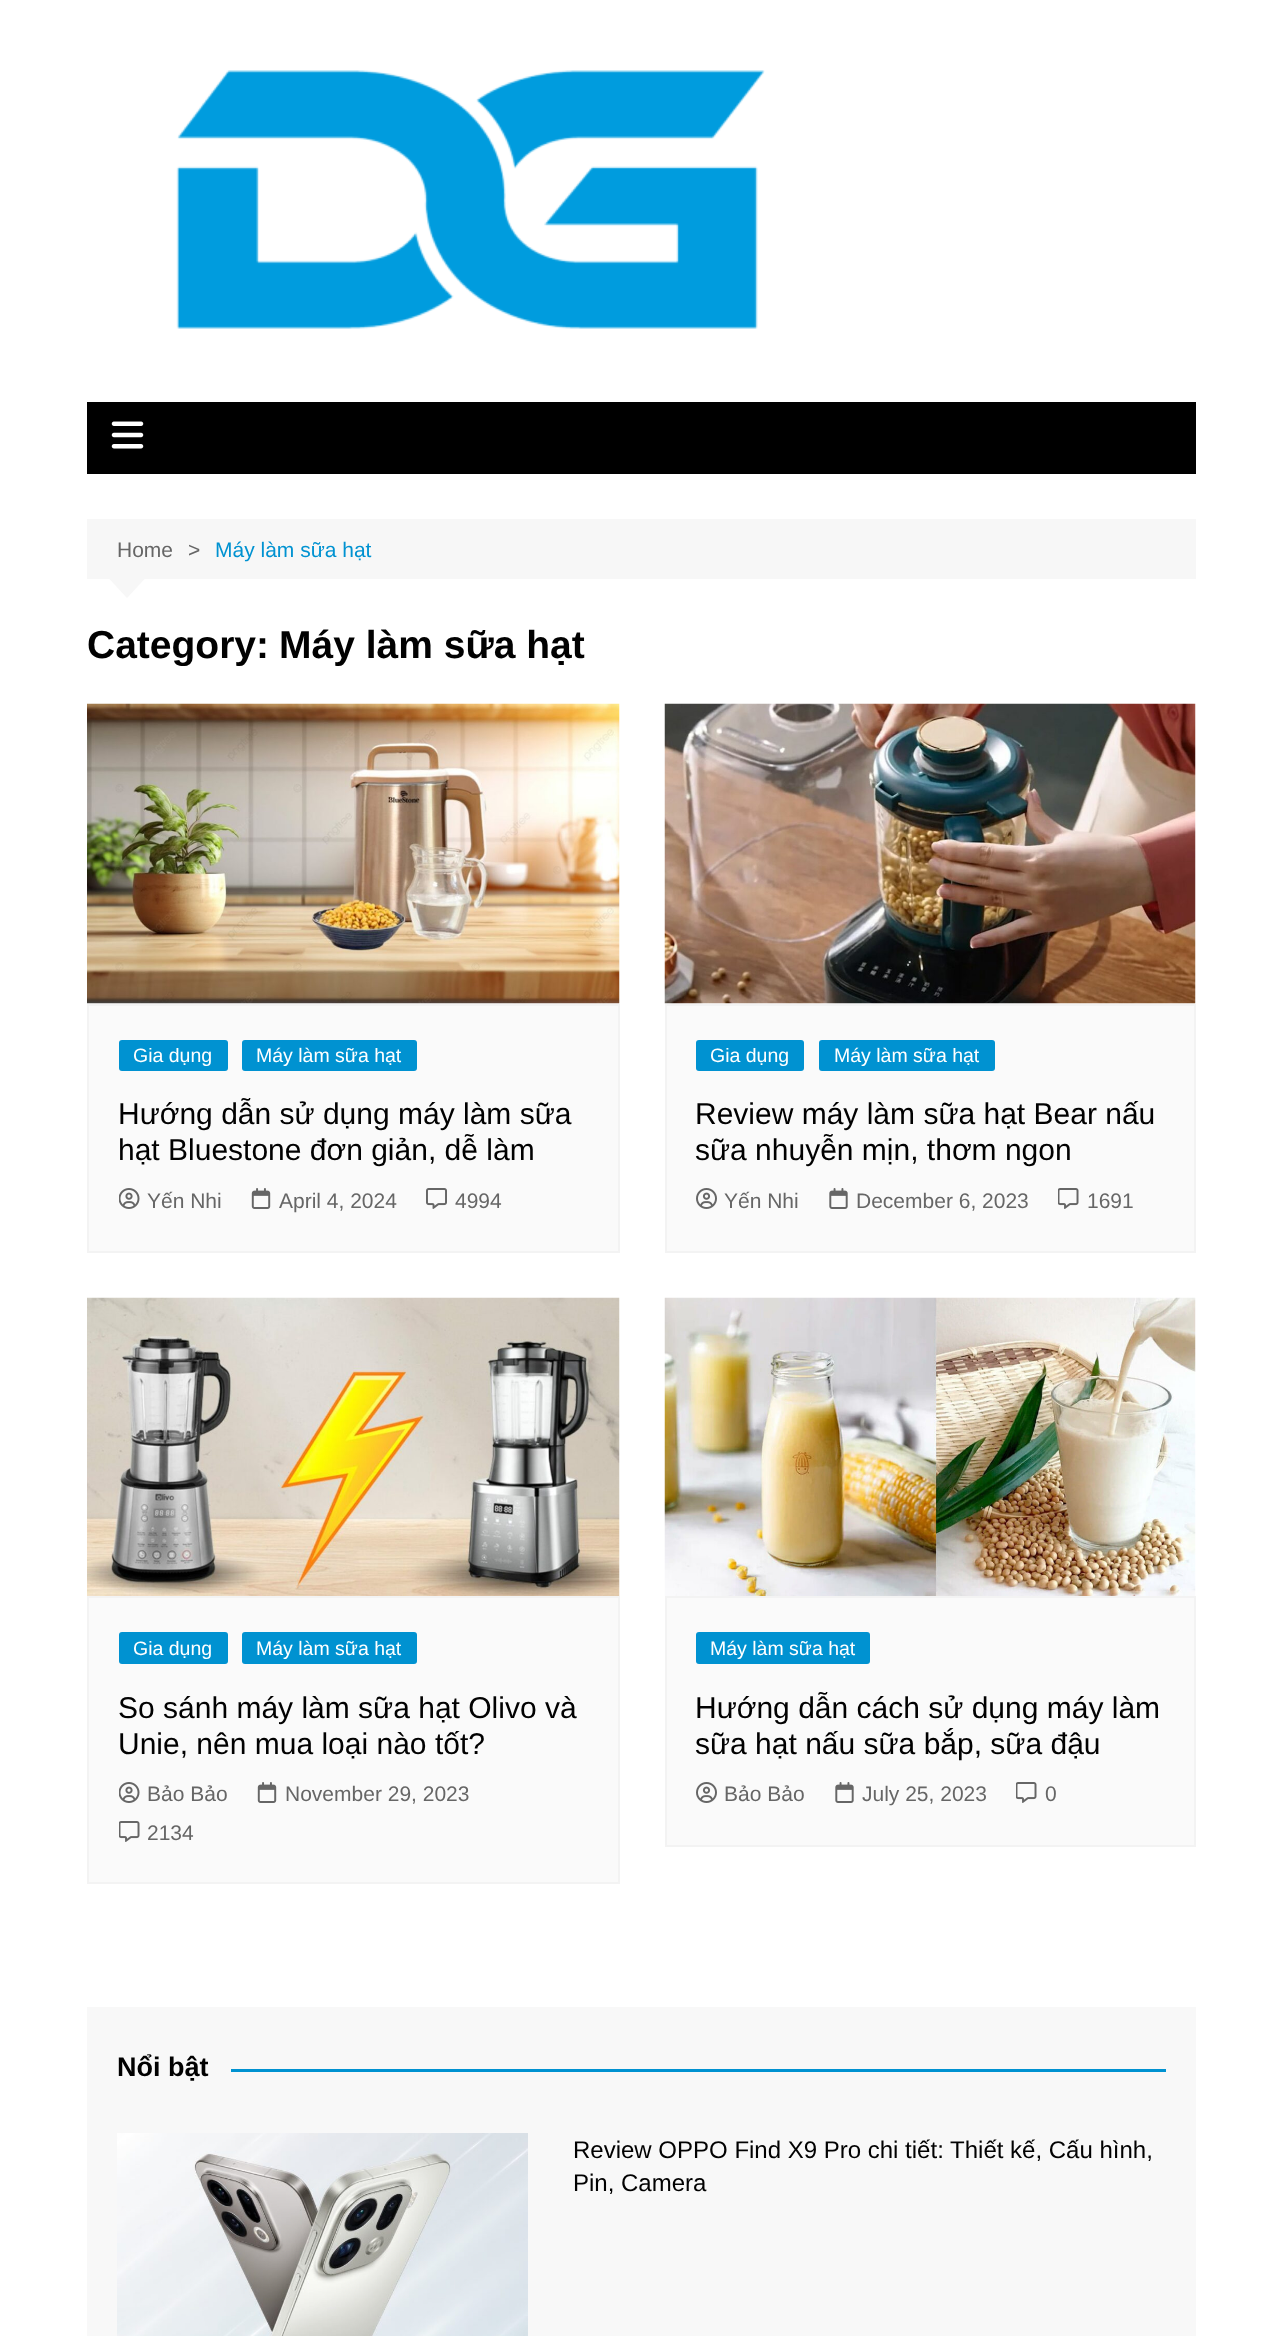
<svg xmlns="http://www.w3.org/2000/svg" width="1282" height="2336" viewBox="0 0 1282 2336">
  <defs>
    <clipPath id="clip1"><rect x="87" y="624" width="1109" height="42"/></clipPath>
  </defs>
  <rect width="100%" height="100%" fill="#ffffff"/>
  <image x="176" y="70" width="589" height="259" href="img1.png"/>
  <rect x="87" y="402" width="1109" height="72" fill="#000000"/>
  <image x="111" y="421" width="33" height="28" href="img2.png"/>
  <rect x="87" y="519" width="1109" height="60" fill="#f7f7f7"/>
  <text x="117" y="557" font-family="Liberation Sans" font-size="21" fill="#666666">Home</text>
  <text x="188" y="557" font-family="Liberation Sans" font-size="21" fill="#666666">&gt;</text>
  <text x="215" y="557" font-family="Liberation Sans" font-size="21" fill="#0092d1">Máy làm sữa hạt</text>
  <path d="M109 578.5H145L127 598Z" fill="#f7f7f7"/>
  <g clip-path="url(#clip1)">
    <text x="87" y="658" font-family="Liberation Sans" font-size="39" font-weight="bold" fill="#010101">Category:</text>
  </g>
  <text x="279" y="658" font-family="Liberation Sans" font-size="39" font-weight="bold" fill="#010101">Máy làm sữa hạt</text>
  <image x="87" y="703" width="533" height="301" href="img3.png"/>
  <rect x="88" y="1005" width="531" height="247" fill="#fafafa" stroke="#f3f3f3" stroke-width="2"/>
  <rect x="119" y="1040" width="109" height="31" rx="3" fill="#0092d1"/>
  <text x="133" y="1062" font-family="Liberation Sans" font-size="19.5" fill="#ffffff">Gia dụng</text>
  <rect x="242" y="1040" width="175" height="31" rx="3" fill="#0092d1"/>
  <text x="256" y="1062" font-family="Liberation Sans" font-size="19.5" fill="#ffffff">Máy làm sữa hạt</text>
  <text x="118" y="1124" font-family="Liberation Sans" font-size="30" fill="#010101">Hướng dẫn sử dụng máy làm sữa</text>
  <text x="118" y="1160" font-family="Liberation Sans" font-size="30" fill="#010101">hạt Bluestone đơn giản, dễ làm</text>
  <image x="119" y="1188" width="21" height="21" href="img4.png"/>
  <text x="147" y="1208" font-family="Liberation Sans" font-size="21" fill="#666666">Yến Nhi</text>
  <image x="251" y="1188" width="20" height="21" href="img5.png"/>
  <text x="279" y="1208" font-family="Liberation Sans" font-size="21" fill="#666666">April 4, 2024</text>
  <image x="426" y="1188" width="21" height="21" href="img6.png"/>
  <text x="455" y="1208" font-family="Liberation Sans" font-size="21" fill="#666666">4994</text>
  <image x="664" y="703" width="532" height="301" href="img7.png"/>
  <rect x="666" y="1005" width="529" height="247" fill="#fafafa" stroke="#f3f3f3" stroke-width="2"/>
  <rect x="696" y="1040" width="108" height="31" rx="3" fill="#0092d1"/>
  <text x="710" y="1062" font-family="Liberation Sans" font-size="19.5" fill="#ffffff">Gia dụng</text>
  <rect x="819" y="1040" width="176" height="31" rx="3" fill="#0092d1"/>
  <text x="834" y="1062" font-family="Liberation Sans" font-size="19.5" fill="#ffffff">Máy làm sữa hạt</text>
  <text x="695" y="1124" font-family="Liberation Sans" font-size="30" fill="#010101">Review máy làm sữa hạt Bear nấu</text>
  <text x="695" y="1160" font-family="Liberation Sans" font-size="30" fill="#010101">sữa nhuyễn mịn, thơm ngon</text>
  <image x="696" y="1188" width="21" height="21" href="img8.png"/>
  <text x="724" y="1208" font-family="Liberation Sans" font-size="21" fill="#666666">Yến Nhi</text>
  <image x="829" y="1188" width="19" height="21" href="img9.png"/>
  <text x="856" y="1208" font-family="Liberation Sans" font-size="21" fill="#666666">December 6, 2023</text>
  <image x="1058" y="1188" width="21" height="21" href="img10.png"/>
  <text x="1087" y="1208" font-family="Liberation Sans" font-size="21" fill="#666666">1691</text>
  <image x="87" y="1297" width="533" height="299" href="img11.png"/>
  <rect x="88" y="1597" width="531" height="286" fill="#fafafa" stroke="#f3f3f3" stroke-width="2"/>
  <rect x="119" y="1632" width="109" height="32" rx="3" fill="#0092d1"/>
  <text x="133" y="1655" font-family="Liberation Sans" font-size="19.5" fill="#ffffff">Gia dụng</text>
  <rect x="242" y="1632" width="175" height="32" rx="3" fill="#0092d1"/>
  <text x="256" y="1655" font-family="Liberation Sans" font-size="19.5" fill="#ffffff">Máy làm sữa hạt</text>
  <text x="118" y="1718" font-family="Liberation Sans" font-size="30" fill="#010101">So sánh máy làm sữa hạt Olivo và</text>
  <text x="118" y="1754" font-family="Liberation Sans" font-size="30" fill="#010101">Unie, nên mua loại nào tốt?</text>
  <image x="119" y="1782" width="21" height="21" href="img4.png"/>
  <text x="147" y="1801" font-family="Liberation Sans" font-size="21" fill="#666666">Bảo Bảo</text>
  <image x="257" y="1782" width="20" height="21" href="img5.png"/>
  <text x="285" y="1801" font-family="Liberation Sans" font-size="21" fill="#666666">November 29, 2023</text>
  <image x="119" y="1821" width="21" height="21" href="img10.png"/>
  <text x="147" y="1840" font-family="Liberation Sans" font-size="21" fill="#666666">2134</text>
  <image x="664" y="1297" width="532" height="299" href="img12.png"/>
  <rect x="666" y="1597" width="529" height="249" fill="#fafafa" stroke="#f3f3f3" stroke-width="2"/>
  <rect x="696" y="1632" width="174" height="32" rx="3" fill="#0092d1"/>
  <text x="710" y="1655" font-family="Liberation Sans" font-size="19.5" fill="#ffffff">Máy làm sữa hạt</text>
  <text x="695" y="1718" font-family="Liberation Sans" font-size="30" fill="#010101">Hướng dẫn cách sử dụng máy làm</text>
  <text x="695" y="1754" font-family="Liberation Sans" font-size="30" fill="#010101">sữa hạt nấu sữa bắp, sữa đậu</text>
  <image x="696" y="1782" width="21" height="21" href="img8.png"/>
  <text x="724" y="1801" font-family="Liberation Sans" font-size="21" fill="#666666">Bảo Bảo</text>
  <image x="835" y="1782" width="19" height="21" href="img9.png"/>
  <text x="862" y="1801" font-family="Liberation Sans" font-size="21" fill="#666666">July 25, 2023</text>
  <image x="1016" y="1782" width="21" height="21" href="img10.png"/>
  <text x="1045" y="1801" font-family="Liberation Sans" font-size="21" fill="#666666">0</text>
  <rect x="87" y="2007" width="1109" height="329" fill="#f8f8f8"/>
  <text x="117" y="2076" font-family="Liberation Sans" font-size="27" font-weight="bold" fill="#010101">Nổi bật</text>
  <rect x="231" y="2069" width="935" height="3" fill="#0092d1"/>
  <image x="117" y="2133" width="411" height="203" href="img13.png"/>
  <text x="573" y="2158" font-family="Liberation Sans" font-size="24" fill="#010101">Review OPPO Find X9 Pro chi tiết: Thiết kế, Cấu hình,</text>
  <text x="573" y="2191" font-family="Liberation Sans" font-size="24" fill="#010101">Pin, Camera</text>
</svg>
